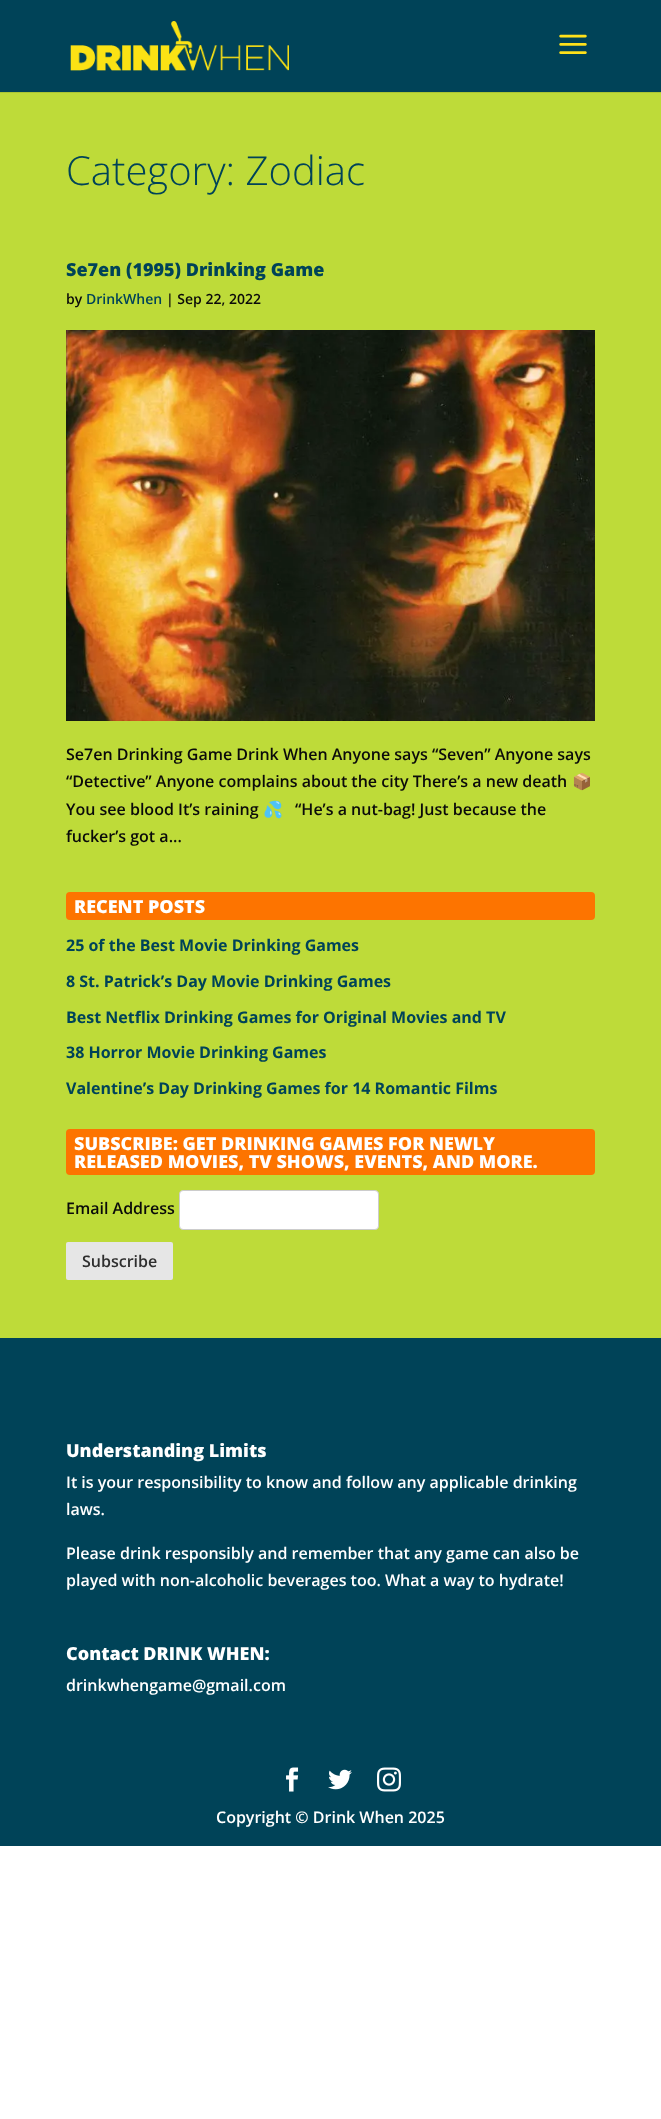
<svg xmlns="http://www.w3.org/2000/svg" width="661" height="2119" viewBox="0 0 661 2119">
  <rect width="100%" height="100%" fill="#ffffff"/>
  <rect x="0" y="92" width="661" height="1" fill="#abc533"/>
  <rect x="0" y="0" width="661" height="92" fill="#004358"/>
  <image x="70" y="21" width="219" height="50" href="img1.png"/>
  <image x="559" y="34" width="28" height="20" href="img2.png"/>
  <rect x="0" y="93" width="661" height="1245" fill="#bedb39"/>
  <text x="66" y="185" font-family="Open Sans" font-size="40" font-weight="300" fill="#004358">Category: Zodiac</text>
  <text x="66" y="276" font-family="Open Sans" font-size="18" font-weight="800" fill="#004358">Se7en (1995) Drinking Game</text>
  <text x="66" y="304" font-family="Open Sans" font-size="14" font-weight="600" fill="#0a0a0a">by</text>
  <text x="86" y="304" font-family="Open Sans" font-size="14" font-weight="600" fill="#004358">DrinkWhen</text>
  <text x="166" y="304" font-family="Open Sans" font-size="14" font-weight="600" fill="#0a0a0a">| Sep 22, 2022</text>
  <image x="66" y="330" width="529" height="391" href="img3.png"/>
  <text x="66" y="760" font-family="Open Sans" font-size="16" font-weight="600" fill="#0a0a0a">Se7en Drinking Game Drink When Anyone says “Seven” Anyone says</text>
  <text x="66" y="787" font-family="Open Sans" font-size="16" font-weight="600" fill="#0a0a0a">“Detective” Anyone complains about the city There’s a new death</text>
  <text x="572" y="787" font-family="Noto Color Emoji" font-size="16" font-weight="bold" fill="#0a0a0a">📦</text>
  <text x="66" y="815" font-family="Open Sans" font-size="16" font-weight="600" fill="#0a0a0a">You see blood It’s raining</text>
  <text x="263" y="815" font-family="Noto Color Emoji" font-size="16" font-weight="bold" fill="#0a0a0a">💦</text>
  <text x="295" y="815" font-family="Open Sans" font-size="16" font-weight="600" fill="#0a0a0a">“He’s a nut-bag! Just because the</text>
  <text x="66" y="842" font-family="Open Sans" font-size="16" font-weight="600" fill="#0a0a0a">fucker’s got a...</text>
  <rect x="66" y="892" width="529" height="28" rx="4" fill="#fd7400"/>
  <text x="74" y="913" font-family="Open Sans" font-size="18" font-weight="800" fill="#ffffff">RECENT POSTS</text>
  <text x="66" y="951" font-family="Open Sans" font-size="16" font-weight="bold" fill="#004358">25 of the Best Movie Drinking Games</text>
  <text x="66" y="987" font-family="Open Sans" font-size="16" font-weight="bold" fill="#004358">8 St. Patrick’s Day Movie Drinking Games</text>
  <text x="66" y="1023" font-family="Open Sans" font-size="16" font-weight="bold" fill="#004358">Best Netflix Drinking Games for Original Movies and TV</text>
  <text x="66" y="1058" font-family="Open Sans" font-size="16" font-weight="bold" fill="#004358">38 Horror Movie Drinking Games</text>
  <text x="66" y="1094" font-family="Open Sans" font-size="16" font-weight="bold" fill="#004358">Valentine’s Day Drinking Games for 14 Romantic Films</text>
  <rect x="66" y="1129" width="529" height="46" rx="4" fill="#fd7400"/>
  <text x="74" y="1150" font-family="Open Sans" font-size="18" font-weight="800" fill="#ffffff">SUBSCRIBE: GET DRINKING GAMES FOR NEWLY</text>
  <text x="74" y="1168" font-family="Open Sans" font-size="18" font-weight="800" fill="#ffffff">RELEASED MOVIES, TV SHOWS, EVENTS, AND MORE.</text>
  <text x="66" y="1214" font-family="Open Sans" font-size="16" font-weight="600" fill="#0a0a0a">Email Address</text>
  <rect x="179.5" y="1190.5" width="199" height="39" rx="3.5" fill="#ffffff" stroke="#cccccc"/>
  <rect x="66" y="1242" width="107" height="38" rx="2" fill="#e6e6e6"/>
  <text x="82" y="1267" font-family="Open Sans" font-size="16" font-weight="600" fill="#2e2e2e">Subscribe</text>
  <rect x="0" y="1338" width="661" height="508" fill="#004358"/>
  <text x="66" y="1457" font-family="Open Sans" font-size="18" font-weight="800" fill="#ffffff">Understanding Limits</text>
  <text x="66" y="1488" font-family="Open Sans" font-size="16" font-weight="600" fill="#ffffff">It is your responsibility to know and follow any applicable drinking</text>
  <text x="66" y="1515" font-family="Open Sans" font-size="16" font-weight="600" fill="#ffffff">laws.</text>
  <text x="66" y="1559" font-family="Open Sans" font-size="16" font-weight="600" fill="#ffffff">Please drink responsibly and remember that any game can also be</text>
  <text x="66" y="1586" font-family="Open Sans" font-size="16" font-weight="600" fill="#ffffff">played with non-alcoholic beverages too. What a way to hydrate!</text>
  <text x="66" y="1660" font-family="Open Sans" font-size="18" font-weight="800" fill="#ffffff">Contact DRINK WHEN:</text>
  <text x="66" y="1691" font-family="Open Sans" font-size="16" font-weight="600" fill="#ffffff">drinkwhengame@gmail.com</text>
  <image x="286" y="1767" width="13" height="25" href="img4.png"/>
  <image x="328" y="1769" width="24" height="21" href="img5.png"/>
  <image x="377" y="1767" width="24" height="25" href="img6.png"/>
  <text x="216" y="1823" font-family="Open Sans" font-size="16" font-weight="600" fill="#ffffff">Copyright © Drink When 2025</text>
</svg>
